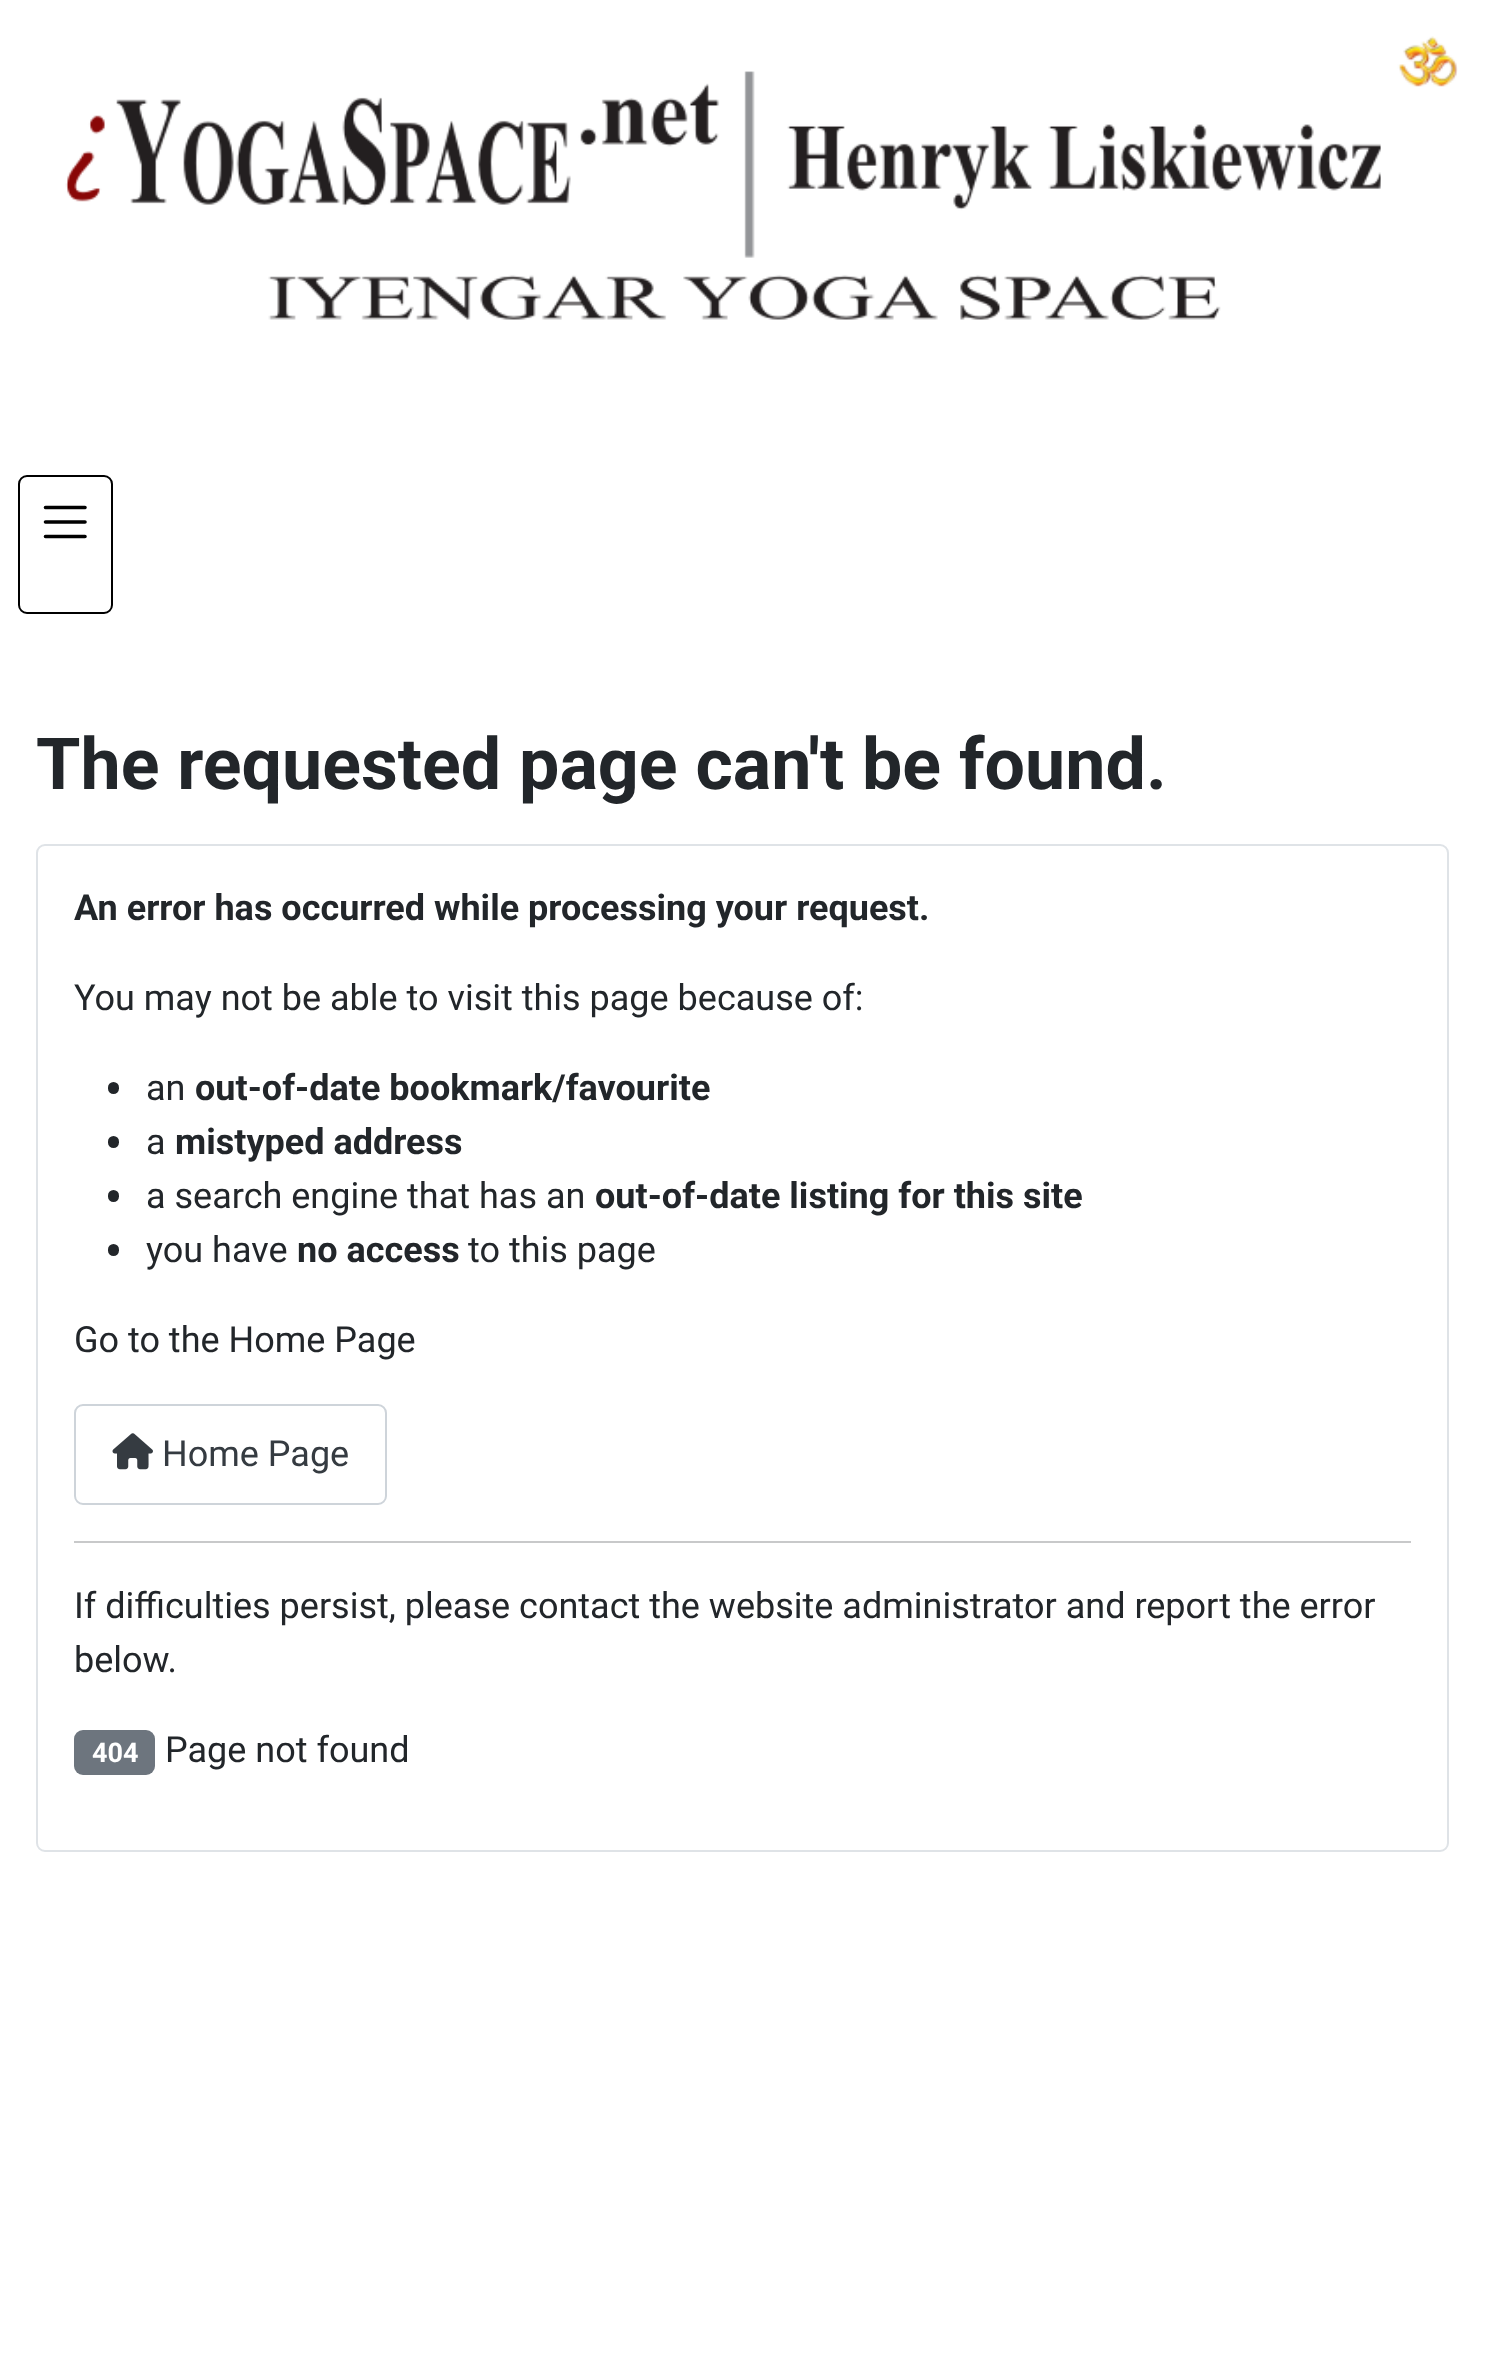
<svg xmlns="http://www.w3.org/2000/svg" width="1485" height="2369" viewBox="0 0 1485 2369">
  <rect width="100%" height="100%" fill="#ffffff"/>
  <image x="65" y="36" width="1393" height="284" href="img1.png"/>
  <rect x="19" y="476" width="93" height="137" rx="8" fill="none" stroke="#000000" stroke-width="2"/>
  <path d="M45.5 507.5H85M45.5 522H85M45.5 536.5H85" fill="none" stroke="#000000" stroke-width="3.6" stroke-linecap="round"/>
  <text x="36" y="789" font-family="Roboto" font-size="71.75" font-weight="bold" fill="#22262a">The requested page can't be found.</text>
  <rect x="37" y="845" width="1411" height="1006" rx="8" fill="none" stroke="#dfe3e7" stroke-width="2"/>
  <text x="74" y="920" font-family="Roboto" font-size="36" font-weight="bold" fill="#22262a">An error has occurred while processing your request.</text>
  <text x="74" y="1010" font-family="Roboto" font-size="36" fill="#22262a">You may not be able to visit this page because of:</text>
  <rect x="108" y="1082" width="11" height="12" rx="5.5" fill="#22262a"/>
  <text x="146" y="1100" font-family="Roboto" font-size="36" fill="#22262a">an</text>
  <text x="195" y="1100" font-family="Roboto" font-size="36" font-weight="bold" fill="#22262a">out-of-date bookmark/favourite</text>
  <rect x="108" y="1136" width="11" height="12" rx="5.5" fill="#22262a"/>
  <text x="146" y="1154" font-family="Roboto" font-size="36" fill="#22262a">a</text>
  <text x="175" y="1154" font-family="Roboto" font-size="36" font-weight="bold" fill="#22262a">mistyped address</text>
  <rect x="108" y="1190" width="11" height="12" rx="5.5" fill="#22262a"/>
  <text x="146" y="1208" font-family="Roboto" font-size="36" fill="#22262a">a search engine that has an</text>
  <text x="595" y="1208" font-family="Roboto" font-size="36" font-weight="bold" fill="#22262a">out-of-date listing for this site</text>
  <rect x="108" y="1244" width="11" height="12" rx="5.5" fill="#22262a"/>
  <text x="146" y="1262" font-family="Roboto" font-size="36" fill="#22262a">you have</text>
  <text x="297" y="1262" font-family="Roboto" font-size="36" font-weight="bold" fill="#22262a">no access</text>
  <text x="468" y="1262" font-family="Roboto" font-size="36" fill="#22262a">to this page</text>
  <text x="74" y="1352" font-family="Roboto" font-size="36" fill="#22262a">Go to the Home Page</text>
  <rect x="75" y="1405" width="311" height="99" rx="8" fill="none" stroke="#ced4da" stroke-width="2"/>
  <image x="112" y="1433" width="41" height="37" href="img2.png"/>
  <text x="162" y="1466" font-family="Roboto" font-size="36" fill="#353b41">Home Page</text>
  <rect x="74" y="1541" width="1337" height="2" fill="#c8c9ca"/>
  <text x="74" y="1618" font-family="Roboto" font-size="36" fill="#22262a">If difficulties persist, please contact the website administrator and report the error</text>
  <text x="74" y="1672" font-family="Roboto" font-size="36" fill="#22262a">below.</text>
  <rect x="74" y="1730" width="81" height="45" rx="9" fill="#6d757e"/>
  <text x="92" y="1762" font-family="Roboto" font-size="27" font-weight="bold" fill="#ffffff">404</text>
  <text x="165" y="1762" font-family="Roboto" font-size="36" fill="#22262a">Page not found</text>
</svg>
